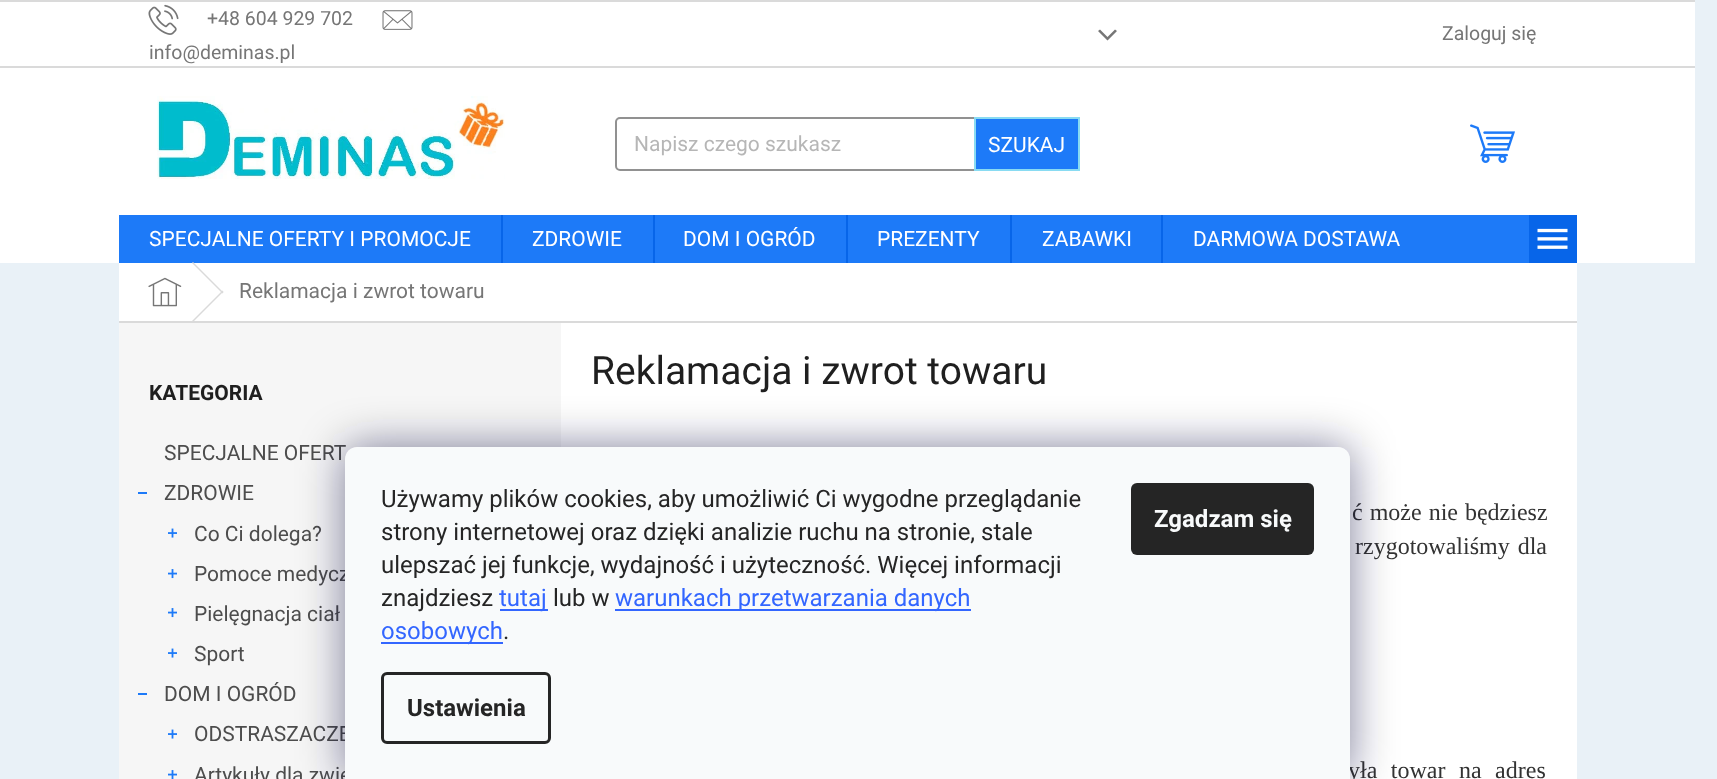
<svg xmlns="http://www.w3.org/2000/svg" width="1717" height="779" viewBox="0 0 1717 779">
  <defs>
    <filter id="blur1" x="-50%" y="-200%" width="200%" height="500%"><feGaussianBlur stdDeviation="22.5"/></filter>
  </defs>
  <rect width="100%" height="100%" fill="#e9f1f7"/>
  <rect x="0" y="2" width="1695" height="64" fill="#ffffff"/>
  <rect x="0" y="0" width="1695" height="2" fill="#dadada"/>
  <rect x="0" y="66" width="1695" height="2" fill="#dadada"/>
  <image x="148" y="4" width="31" height="31" href="img1.png"/>
  <text x="207" y="25" font-family="Roboto" font-size="19.5" fill="#767676">+48 604 929 702</text>
  <image x="382" y="10" width="31" height="20" href="img2.png"/>
  <text x="149" y="59" font-family="Roboto" font-size="19.5" fill="#767676">info@deminas.pl</text>
  <path d="M1098 31L1100 29.5L1107.5 37L1115 29.5L1117 31L1107.5 40.5Z" fill="#767676"/>
  <text x="1442" y="40" font-family="Roboto" font-size="19.5" fill="#767676">Zaloguj się</text>
  <rect x="0" y="68" width="1695" height="195" fill="#ffffff"/>
  <image x="157" y="96" width="348" height="83" href="img3.png"/>
  <rect x="616" y="118" width="463" height="52" rx="4" fill="none" stroke="#919191" stroke-width="2"/>
  <text x="634" y="151" font-family="Roboto" font-size="21" fill="#b6b6b6">Napisz czego szukasz</text>
  <rect x="975" y="118" width="104" height="52" fill="#1d7af8" stroke="#89dbf2" stroke-width="2"/>
  <text x="988" y="152" font-family="Roboto" font-size="21" fill="#ffffff">SZUKAJ</text>
  <image x="1470" y="124" width="45" height="39" href="img4.png"/>
  <rect x="119" y="215" width="1410" height="48" fill="#1d7af8"/>
  <text x="149" y="246" font-family="Roboto" font-size="21" fill="#ffffff">SPECJALNE OFERTY I PROMOCJE</text>
  <rect x="501" y="215" width="2" height="48" fill="#0765e9"/>
  <text x="532" y="246" font-family="Roboto" font-size="21" fill="#ffffff">ZDROWIE</text>
  <rect x="653" y="215" width="2" height="48" fill="#0765e9"/>
  <text x="683" y="246" font-family="Roboto" font-size="21" fill="#ffffff">DOM I OGRÓD</text>
  <rect x="846" y="215" width="2" height="48" fill="#0765e9"/>
  <text x="877" y="246" font-family="Roboto" font-size="21" fill="#ffffff">PREZENTY</text>
  <rect x="1010" y="215" width="2" height="48" fill="#0765e9"/>
  <text x="1042" y="246" font-family="Roboto" font-size="21" fill="#ffffff">ZABAWKI</text>
  <rect x="1161" y="215" width="2" height="48" fill="#0765e9"/>
  <text x="1193" y="246" font-family="Roboto" font-size="21" fill="#ffffff">DARMOWA DOSTAWA</text>
  <rect x="1529" y="215" width="48" height="48" fill="#0765e9"/>
  <image x="1537" y="228" width="31" height="21" href="img5.png"/>
  <rect x="119" y="263" width="1458" height="58" fill="#ffffff"/>
  <rect x="119" y="321" width="1458" height="2" fill="#dadada"/>
  <image x="148" y="277" width="34" height="30" href="img6.png"/>
  <path d="M192 263L193 262L223.5 292.5L222.5 293.5Z" fill="#dadada"/>
  <path d="M222.5 290.5L223.5 291.5L193 322L192 321Z" fill="#dadada"/>
  <text x="239" y="298" font-family="Roboto" font-size="21" fill="#767676">Reklamacja i zwrot towaru</text>
  <rect x="561" y="323" width="1016" height="456" fill="#ffffff"/>
  <rect x="119" y="323" width="442" height="456" fill="#f6f6f6"/>
  <text x="149" y="400" font-family="Roboto" font-size="21" font-weight="bold" fill="#1f1f1f">KATEGORIA</text>
  <text x="164" y="460" font-family="Roboto" font-size="21" fill="#4d4d4d">SPECJALNE OFERT</text>
  <rect x="138" y="492" width="9" height="2" fill="#1d7af8"/>
  <text x="164" y="500" font-family="Roboto" font-size="21" fill="#4d4d4d">ZDROWIE</text>
  <image x="168" y="528" width="9" height="10" href="img7.png"/>
  <text x="194" y="541" font-family="Roboto" font-size="21" fill="#4d4d4d">Co Ci dolega?</text>
  <image x="168" y="569" width="9" height="10" href="img8.png"/>
  <text x="194" y="581" font-family="Roboto" font-size="21" fill="#4d4d4d">Pomoce medycz</text>
  <image x="168" y="608" width="9" height="10" href="img8.png"/>
  <text x="194" y="621" font-family="Roboto" font-size="21" fill="#4d4d4d">Pielęgnacja ciał</text>
  <image x="168" y="648" width="9" height="10" href="img7.png"/>
  <text x="194" y="661" font-family="Roboto" font-size="21" fill="#4d4d4d">Sport</text>
  <rect x="138" y="693" width="9" height="2" fill="#1d7af8"/>
  <text x="164" y="701" font-family="Roboto" font-size="21" fill="#4d4d4d">DOM I OGRÓD</text>
  <image x="168" y="729" width="9" height="10" href="img7.png"/>
  <text x="194" y="741" font-family="Roboto" font-size="21" fill="#4d4d4d">ODSTRASZACZE</text>
  <image x="168" y="770" width="9" height="9" href="img9.png"/>
  <text x="194" y="782" font-family="Roboto" font-size="21" fill="#4d4d4d">Artykuły dla zwie</text>
  <text x="591" y="384" font-family="Roboto" font-size="39" fill="#1f1f1f">Reklamacja i zwrot towaru</text>
  <text x="1352" y="520" word-spacing="1" font-family="Liberation Serif" font-size="24" fill="#333333">ć może nie będziesz</text>
  <text x="1355" y="554" word-spacing="2" font-family="Liberation Serif" font-size="24" fill="#333333">rzygotowaliśmy dla</text>
  <text x="1348" y="778" word-spacing="7.5" font-family="Liberation Serif" font-size="24" fill="#333333">yła towar na adres</text>
  <rect x="345" y="447" width="1005" height="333" rx="12" fill="#1b1939" fill-opacity="0.5" filter="url(#blur1)"/>
  <path d="M357 447H1338C1344.5 447 1350 452.5 1350 459V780H345V459C345 452.5 350.5 447 357 447Z" fill="#f8fafb"/>
  <text x="381" y="507" font-family="Roboto" font-size="24" fill="#252525">Używamy plików cookies, aby umożliwić Ci wygodne przeglądanie</text>
  <text x="381" y="540" font-family="Roboto" font-size="24" fill="#252525">strony internetowej oraz dzięki analizie ruchu na stronie, stale</text>
  <text x="381" y="573" font-family="Roboto" font-size="24" fill="#252525">ulepszać jej funkcje, wydajność i użyteczność. Więcej informacji</text>
  <text x="381" y="606" font-family="Roboto" font-size="24" fill="#252525">znajdziesz</text>
  <rect x="500" y="609" width="48" height="2" fill="#3366ff"/>
  <text x="499" y="606" font-family="Roboto" font-size="24" fill="#3366ff">tutaj</text>
  <text x="553" y="606" font-family="Roboto" font-size="24" fill="#252525">lub w</text>
  <rect x="615" y="609" width="356" height="2" fill="#3366ff"/>
  <text x="615" y="606" font-family="Roboto" font-size="24" fill="#3366ff">warunkach przetwarzania danych</text>
  <rect x="381" y="642" width="122" height="2" fill="#3366ff"/>
  <text x="381" y="639" font-family="Roboto" font-size="24" fill="#3366ff">osobowych</text>
  <text x="503" y="639" font-family="Roboto" font-size="24" fill="#252525">.</text>
  <rect x="382.5" y="673.5" width="167" height="69" rx="4.5" fill="none" stroke="#252525" stroke-width="3"/>
  <text x="407" y="716" font-family="Roboto" font-size="24" font-weight="bold" fill="#252525">Ustawienia</text>
  <rect x="1131" y="483" width="183" height="72" rx="6" fill="#252525"/>
  <text x="1154" y="527" font-family="Roboto" font-size="24" font-weight="bold" fill="#f8fafb">Zgadzam się</text>
</svg>
